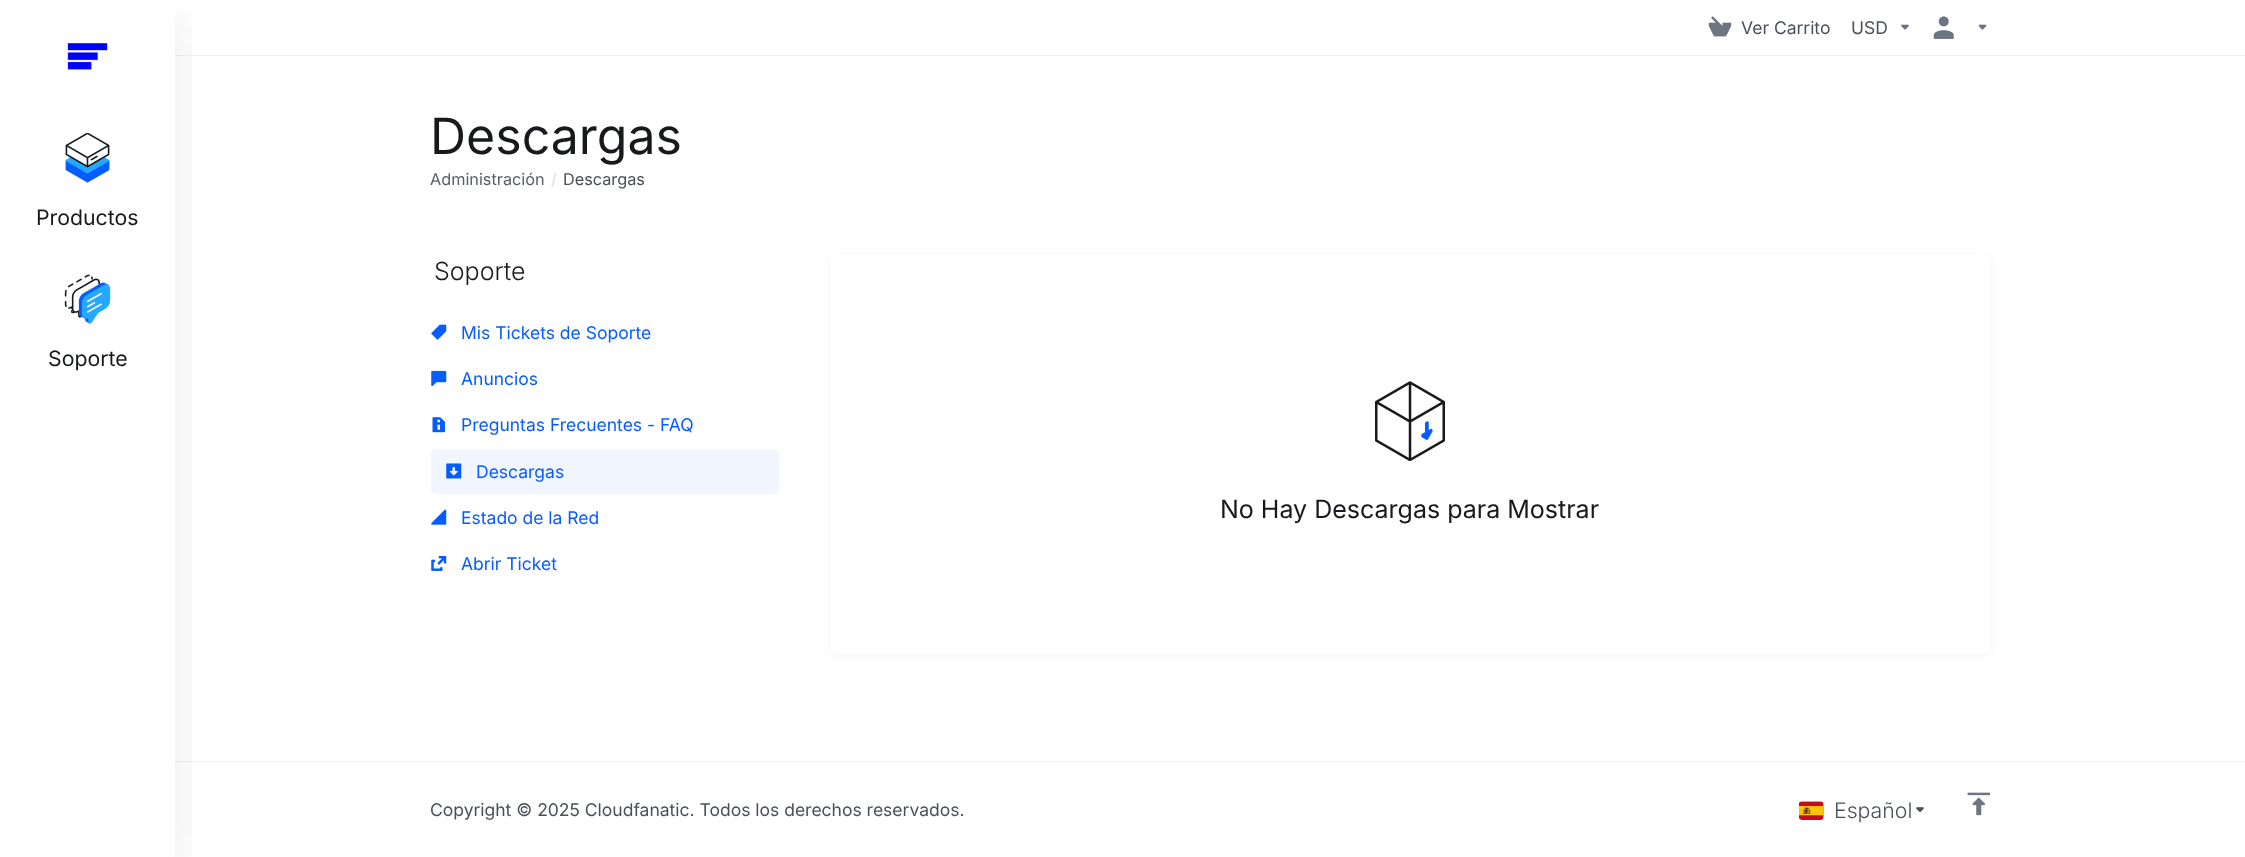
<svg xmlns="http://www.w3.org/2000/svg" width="2245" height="857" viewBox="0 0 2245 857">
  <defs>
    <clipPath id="clip1"><rect x="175" y="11" width="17" height="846"/></clipPath>
    <filter id="blur1" x="-50%" y="-200%" width="200%" height="500%"><feGaussianBlur stdDeviation="25"/></filter>
    <filter id="blur2" x="-50%" y="-200%" width="200%" height="500%"><feGaussianBlur stdDeviation="6"/></filter>
  </defs>
  <rect width="100%" height="100%" fill="#ffffff"/>
  <rect x="175" y="55" width="2070" height="1" fill="#efeff1"/>
  <rect x="175" y="761" width="2070" height="1" fill="#efeff1"/>
  <g clip-path="url(#clip1)">
    <rect x="0" y="10" width="175" height="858" fill="#000000" fill-opacity="0.08" filter="url(#blur1)"/>
  </g>
  <image x="67" y="43" width="41" height="27" href="img1.png"/>
  <image x="65" y="133" width="45" height="50" href="img2.png"/>
  <text x="36" y="225" font-family="Inter" font-size="21.25" fill="#17191c">Productos</text>
  <image x="64" y="274" width="47" height="50" href="img3.png"/>
  <text x="48" y="366" font-family="Inter" font-size="21.25" fill="#17191c">Soporte</text>
  <image x="1708" y="16" width="24" height="21" href="img4.png"/>
  <text x="1741" y="34" font-family="Inter" font-size="17.5" fill="#4b4f58">Ver Carrito</text>
  <text x="1851" y="34" font-family="Inter" font-size="17.5" fill="#4b4f58">USD</text>
  <image x="1901" y="24" width="8" height="6" href="img5.png"/>
  <image x="1933" y="16" width="21" height="23" href="img6.png"/>
  <image x="1978" y="24" width="9" height="6" href="img7.png"/>
  <text x="430" y="154" font-family="Inter" font-size="50" fill="#17191c">Descargas</text>
  <text x="430" y="185" font-family="Inter" font-size="16.25" fill="#595e69">Administración</text>
  <text x="551" y="185" font-family="Inter" font-size="16.25" fill="#dee0e3">/</text>
  <text x="563" y="185" font-family="Inter" font-size="16.25" fill="#4b4f58">Descargas</text>
  <text x="434" y="280" font-family="Inter" font-size="25" font-weight="300" fill="#17191c">Soporte</text>
  <image x="431" y="324" width="16" height="16" href="img8.png"/>
  <text x="461" y="339" font-family="Inter" font-size="17.5" fill="#065cfe">Mis Tickets de Soporte</text>
  <image x="431" y="370" width="16" height="16" href="img9.png"/>
  <text x="461" y="385" font-family="Inter" font-size="17.5" fill="#065cfe">Anuncios</text>
  <image x="432" y="417" width="13" height="16" href="img10.png"/>
  <text x="461" y="431" font-family="Inter" font-size="17.5" fill="#065cfe">Preguntas Frecuentes - FAQ</text>
  <rect x="431" y="449" width="348" height="45" rx="5" fill="#f0f5ff"/>
  <image x="446" y="463" width="16" height="16" href="img11.png"/>
  <text x="476" y="478" font-family="Inter" font-size="17.5" fill="#065cfe">Descargas</text>
  <image x="431" y="509" width="16" height="16" href="img12.png"/>
  <text x="461" y="524" font-family="Inter" font-size="17.5" fill="#065cfe">Estado de la Red</text>
  <image x="431" y="555" width="16" height="16" href="img13.png"/>
  <text x="461" y="570" font-family="Inter" font-size="17.5" fill="#065cfe">Abrir Ticket</text>
  <rect x="830" y="256" width="1160" height="400" rx="8" fill="#000000" fill-opacity="0.04" filter="url(#blur2)"/>
  <rect x="830" y="254" width="1160" height="400" rx="8" fill="#ffffff"/>
  <image x="1375" y="381" width="70" height="80" href="img14.png"/>
  <text x="1220" y="518" font-family="Inter" font-size="25" fill="#17191c">No Hay Descargas para Mostrar</text>
  <text x="430" y="816" font-family="Inter" font-size="17.5" fill="#4b4f58">Copyright © 2025 Cloudfanatic. Todos los derechos reservados.</text>
  <image x="1799" y="801" width="25" height="19" href="img15.png"/>
  <text x="1834" y="818" font-family="Inter" font-size="21.25" font-weight="300" fill="#4b4f58">Español</text>
  <image x="1916" y="807" width="8" height="6" href="img16.png"/>
  <image x="1967" y="792" width="23" height="24" href="img17.png"/>
</svg>
